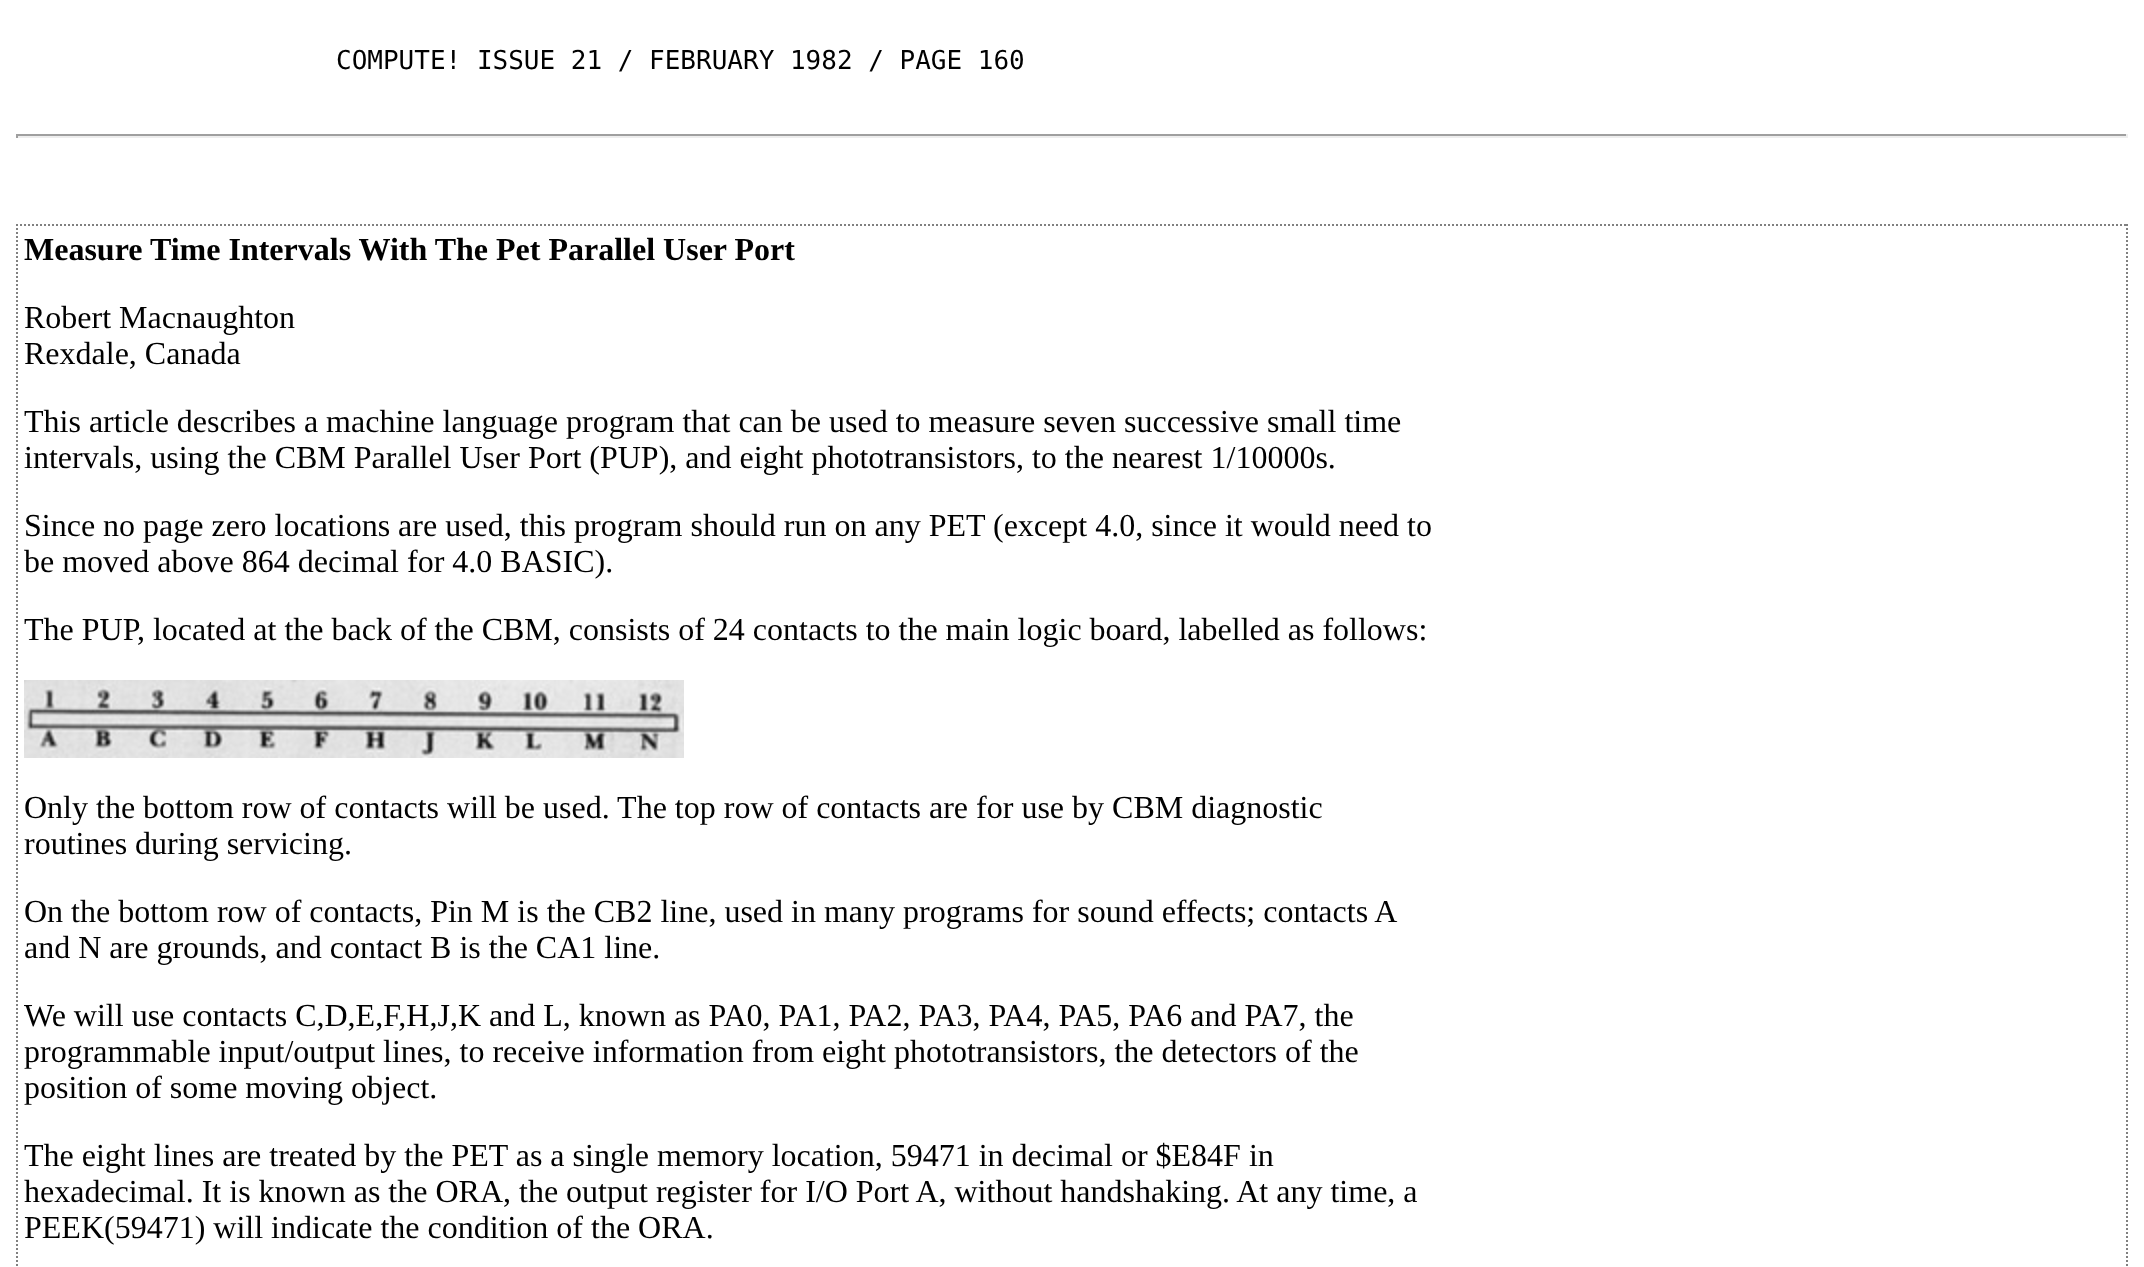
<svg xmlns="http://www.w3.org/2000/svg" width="2144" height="1267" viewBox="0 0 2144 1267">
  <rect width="100%" height="100%" fill="#ffffff"/>
  <text x="336" y="69" font-family="DejaVu Sans Mono" font-size="26" fill="#000000">COMPUTE! ISSUE 21 / FEBRUARY 1982 / PAGE 160</text>
  <rect x="16" y="134" width="2112" height="2" fill="#9f9f9f"/>
  <rect x="2126" y="134" width="2" height="4" fill="#eeeeee"/>
  <rect x="16" y="136" width="2112" height="2" fill="#eeeeee"/>
  <rect x="16" y="134" width="2" height="4" fill="#9f9f9f"/>
  <path d="M16 225H2128" fill="none" stroke="#808080" stroke-width="2" stroke-dasharray="2 2"/>
  <path d="M2127 224V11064" fill="none" stroke="#808080" stroke-width="2" stroke-dasharray="2 2"/>
  <path d="M17 224V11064" fill="none" stroke="#808080" stroke-width="2" stroke-dasharray="2 2"/>
  <text x="24" y="260" font-family="Liberation Serif" font-size="32" font-weight="bold" fill="#000000">Measure Time Intervals With The Pet Parallel User Port</text>
  <text x="24" y="328" font-family="Liberation Serif" font-size="32" fill="#000000">Robert Macnaughton</text>
  <text x="24" y="364" font-family="Liberation Serif" font-size="32" fill="#000000">Rexdale, Canada</text>
  <text x="24" y="432" font-family="Liberation Serif" font-size="32" fill="#000000">This article describes a machine language program that can be used to measure seven successive small time</text>
  <text x="24" y="468" font-family="Liberation Serif" font-size="32" fill="#000000">intervals, using the CBM Parallel User Port (PUP), and eight phototransistors, to the nearest 1/10000s.</text>
  <text x="24" y="536" font-family="Liberation Serif" font-size="32" fill="#000000">Since no page zero locations are used, this program should run on any PET (except 4.0, since it would need to</text>
  <text x="24" y="572" font-family="Liberation Serif" font-size="32" fill="#000000">be moved above 864 decimal for 4.0 BASIC).</text>
  <text x="24" y="640" font-family="Liberation Serif" font-size="32" fill="#000000">The PUP, located at the back of the CBM, consists of 24 contacts to the main logic board, labelled as follows:</text>
  <image x="24" y="680" width="660" height="78" href="img1.png"/>
  <text x="24" y="818" font-family="Liberation Serif" font-size="32" fill="#000000">Only the bottom row of contacts will be used. The top row of contacts are for use by CBM diagnostic</text>
  <text x="24" y="854" font-family="Liberation Serif" font-size="32" fill="#000000">routines during servicing.</text>
  <text x="24" y="922" font-family="Liberation Serif" font-size="32" fill="#000000">On the bottom row of contacts, Pin M is the CB2 line, used in many programs for sound effects; contacts A</text>
  <text x="24" y="958" font-family="Liberation Serif" font-size="32" fill="#000000">and N are grounds, and contact B is the CA1 line.</text>
  <text x="24" y="1026" font-family="Liberation Serif" font-size="32" fill="#000000">We will use contacts C,D,E,F,H,J,K and L, known as PA0, PA1, PA2, PA3, PA4, PA5, PA6 and PA7, the</text>
  <text x="24" y="1062" font-family="Liberation Serif" font-size="32" fill="#000000">programmable input/output lines, to receive information from eight phototransistors, the detectors of the</text>
  <text x="24" y="1098" font-family="Liberation Serif" font-size="32" fill="#000000">position of some moving object.</text>
  <text x="24" y="1166" font-family="Liberation Serif" font-size="32" fill="#000000">The eight lines are treated by the PET as a single memory location, 59471 in decimal or $E84F in</text>
  <text x="24" y="1202" font-family="Liberation Serif" font-size="32" fill="#000000">hexadecimal. It is known as the ORA, the output register for I/O Port A, without handshaking. At any time, a</text>
  <text x="24" y="1238" font-family="Liberation Serif" font-size="32" fill="#000000">PEEK(59471) will indicate the condition of the ORA.</text>
</svg>
